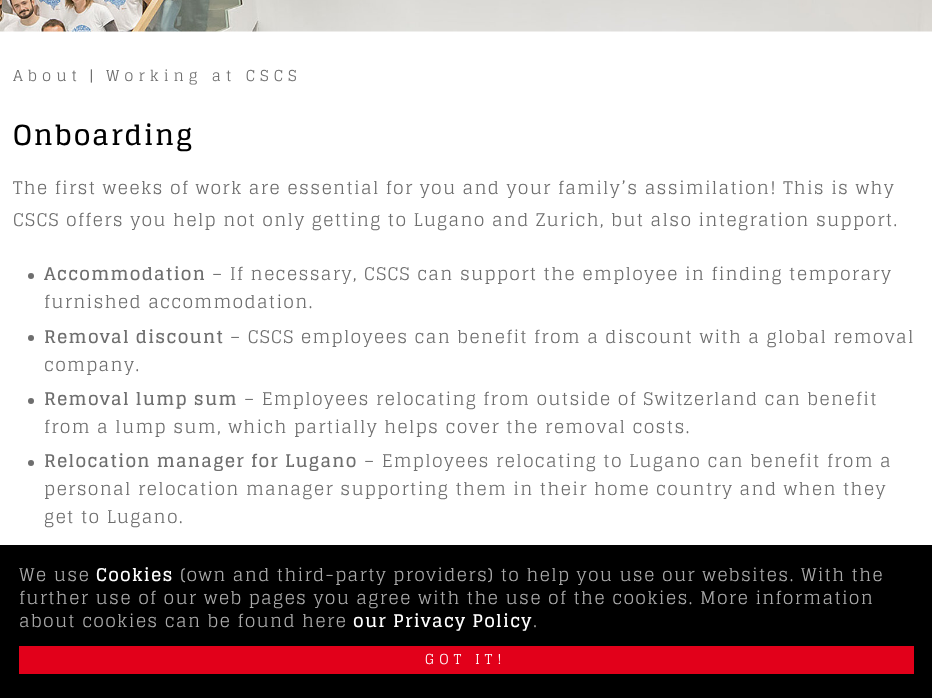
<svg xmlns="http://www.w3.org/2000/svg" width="932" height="698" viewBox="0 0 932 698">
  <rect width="100%" height="100%" fill="#ffffff"/>
  <image x="0" y="0" width="932" height="32" href="img1.png"/>
  <text x="13" y="81" font-family="Glegoo" font-size="15" letter-spacing="5" fill="#6e6e6e">About</text>
  <text x="89" y="81" font-family="Glegoo" font-size="15" letter-spacing="5" fill="#6e6e6e">|</text>
  <text x="106" y="81" font-family="Glegoo" font-size="15" letter-spacing="5" fill="#6e6e6e">Working at CSCS</text>
  <text x="13" y="145" font-family="Glegoo" font-size="27.5" font-weight="bold" letter-spacing="1.9" fill="#000000">Onboarding</text>
  <text x="13" y="194" font-family="Glegoo" font-size="17.5" letter-spacing="1.25" fill="#6e6e6e">The first weeks of work are essential for you and your family’s assimilation! This is why</text>
  <text x="13" y="226" font-family="Glegoo" font-size="17.5" letter-spacing="1.25" fill="#6e6e6e">CSCS offers you help not only getting to Lugano and Zurich, but also integration support.</text>
  <circle cx="31" cy="276" r="3" fill="#6e6e6e"/>
  <text x="44" y="280" font-family="Glegoo" font-size="17.5" font-weight="bold" letter-spacing="1.25" fill="#6e6e6e">Accommodation</text>
  <text x="212" y="280" font-family="Glegoo" font-size="17.5" letter-spacing="1.25" fill="#6e6e6e">– If necessary, CSCS can support the employee in finding temporary</text>
  <text x="44" y="308" font-family="Glegoo" font-size="17.5" letter-spacing="1.25" fill="#6e6e6e">furnished accommodation.</text>
  <circle cx="31" cy="338" r="3" fill="#6e6e6e"/>
  <text x="44" y="343" font-family="Glegoo" font-size="17.5" font-weight="bold" letter-spacing="1.25" fill="#6e6e6e">Removal discount</text>
  <text x="230" y="343" font-family="Glegoo" font-size="17.5" letter-spacing="1.25" fill="#6e6e6e">– CSCS employees can benefit from a discount with a global removal</text>
  <text x="44" y="371" font-family="Glegoo" font-size="17.5" letter-spacing="1.25" fill="#6e6e6e">company.</text>
  <circle cx="31" cy="401" r="3" fill="#6e6e6e"/>
  <text x="44" y="405" font-family="Glegoo" font-size="17.5" font-weight="bold" letter-spacing="1.25" fill="#6e6e6e">Removal lump sum</text>
  <text x="244" y="405" font-family="Glegoo" font-size="17.5" letter-spacing="1.25" fill="#6e6e6e">– Employees relocating from outside of Switzerland can benefit</text>
  <text x="44" y="433" font-family="Glegoo" font-size="17.5" letter-spacing="1.25" fill="#6e6e6e">from a lump sum, which partially helps cover the removal costs.</text>
  <circle cx="31" cy="463" r="3" fill="#6e6e6e"/>
  <text x="44" y="467" font-family="Glegoo" font-size="17.5" font-weight="bold" letter-spacing="1.25" fill="#6e6e6e">Relocation manager for Lugano</text>
  <text x="364" y="467" font-family="Glegoo" font-size="17.5" letter-spacing="1.25" fill="#6e6e6e">– Employees relocating to Lugano can benefit from a</text>
  <text x="44" y="495" font-family="Glegoo" font-size="17.5" letter-spacing="1.25" fill="#6e6e6e">personal relocation manager supporting them in their home country and when they</text>
  <text x="44" y="523" font-family="Glegoo" font-size="17.5" letter-spacing="1.25" fill="#6e6e6e">get to Lugano.</text>
  <rect x="0" y="545" width="932" height="153" fill="#000000"/>
  <text x="19" y="581" font-family="Glegoo" font-size="17.5" letter-spacing="1.25" fill="#aaaaaa">We use</text>
  <text x="96" y="581" font-family="Glegoo" font-size="17.5" font-weight="bold" letter-spacing="1.25" fill="#ffffff">Cookies</text>
  <text x="180" y="581" font-family="Glegoo" font-size="17.5" letter-spacing="1.25" fill="#aaaaaa">(own and third-party providers) to help you use our websites. With the</text>
  <text x="19" y="604" font-family="Glegoo" font-size="17.5" letter-spacing="1.25" fill="#aaaaaa">further use of our web pages you agree with the use of the cookies. More information</text>
  <text x="19" y="627" font-family="Glegoo" font-size="17.5" letter-spacing="1.25" fill="#aaaaaa">about cookies can be found here</text>
  <text x="353" y="627" font-family="Glegoo" font-size="17.5" font-weight="bold" letter-spacing="1.25" fill="#ffffff">our Privacy Policy</text>
  <text x="533" y="627" font-family="Glegoo" font-size="17.5" letter-spacing="1.25" fill="#aaaaaa">.</text>
  <rect x="19" y="646" width="895" height="28" fill="#e2001a"/>
  <text x="425" y="664" font-family="Glegoo" font-size="13.75" letter-spacing="5" fill="#ffffff">GOT IT!</text>
</svg>
